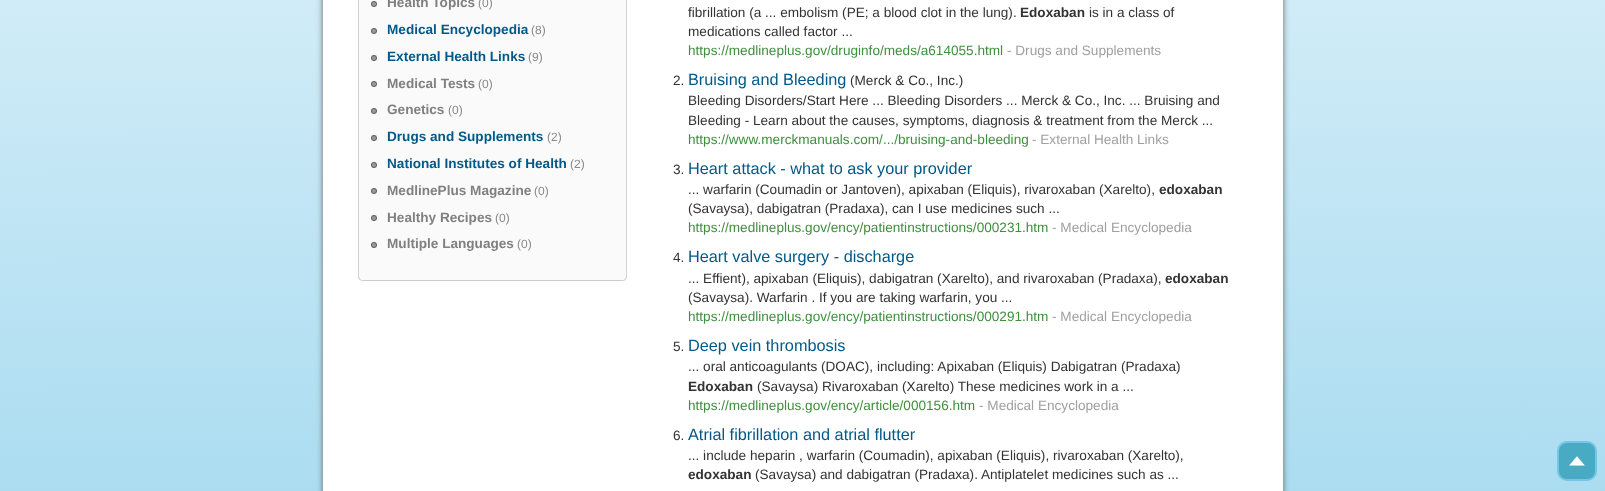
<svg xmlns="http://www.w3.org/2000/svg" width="1605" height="491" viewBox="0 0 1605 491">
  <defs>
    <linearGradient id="g1" gradientUnits="userSpaceOnUse" x1="802" y1="-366" x2="803" y2="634"><stop offset="0" stop-color="#feffff"/><stop offset="0.2" stop-color="#ddf1f9"/><stop offset="1" stop-color="#a0d8ef"/></linearGradient>
    <filter id="blur1" x="-50%" y="-200%" width="200%" height="500%"><feGaussianBlur stdDeviation="3"/></filter>
  </defs>
  <rect width="100%" height="100%" fill="#ffffff"/>
  <rect x="0" y="0" width="1605" height="491" fill="url(#g1)"/>
  <rect x="323" y="-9" width="960" height="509" fill="#666666" filter="url(#blur1)"/>
  <rect x="323" y="0" width="960" height="491" fill="#ffffff"/>
  <path d="M358-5H627V276C627 279 625 281 622 281H363C360 281 358 279 358 276Z" fill="#fafafa"/>
  <path d="M627-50L626-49V276L625 279L626 280C626 279 627 278 627 276Z" fill="#d2d2d2"/>
  <path d="M363 281H622C624 281 625 280 626 280L625 279C624 280 623 280 622 280H363C362 280 361 280 360 279L359 280C360 280 362 281 363 281Z" fill="#cccccc"/>
  <path d="M359-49L358-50V277L359 280L360 279L359 276Z" fill="#d2d2d2"/>
  <image x="371" y="1" width="6" height="6" href="img1.png"/>
  <text x="387" y="7" font-family="Liberation Sans" font-size="13.6" font-weight="bold" fill="#808080">Health Topics</text>
  <text x="478" y="7" font-family="Liberation Sans" font-size="12" fill="#888888">(0)</text>
  <image x="371" y="28" width="6" height="6" href="img1.png"/>
  <text x="387" y="34" font-family="Liberation Sans" font-size="13.6" font-weight="bold" fill="#005988">Medical Encyclopedia</text>
  <text x="531" y="34" font-family="Liberation Sans" font-size="12" fill="#888888">(8)</text>
  <image x="371" y="55" width="6" height="6" href="img1.png"/>
  <text x="387" y="61" font-family="Liberation Sans" font-size="13.6" font-weight="bold" fill="#005988">External Health Links</text>
  <text x="528" y="61" font-family="Liberation Sans" font-size="12" fill="#888888">(9)</text>
  <image x="371" y="81" width="6" height="6" href="img1.png"/>
  <text x="387" y="88" font-family="Liberation Sans" font-size="13.6" font-weight="bold" fill="#808080">Medical Tests</text>
  <text x="478" y="88" font-family="Liberation Sans" font-size="12" fill="#888888">(0)</text>
  <image x="371" y="108" width="6" height="6" href="img1.png"/>
  <text x="387" y="114" font-family="Liberation Sans" font-size="13.6" font-weight="bold" fill="#808080">Genetics</text>
  <text x="448" y="114" font-family="Liberation Sans" font-size="12" fill="#888888">(0)</text>
  <image x="371" y="135" width="6" height="6" href="img1.png"/>
  <text x="387" y="141" font-family="Liberation Sans" font-size="13.6" font-weight="bold" fill="#005988">Drugs and Supplements</text>
  <text x="547" y="141" font-family="Liberation Sans" font-size="12" fill="#888888">(2)</text>
  <image x="371" y="162" width="6" height="6" href="img1.png"/>
  <text x="387" y="168" font-family="Liberation Sans" font-size="13.6" font-weight="bold" fill="#005988">National Institutes of Health</text>
  <text x="570" y="168" font-family="Liberation Sans" font-size="12" fill="#888888">(2)</text>
  <image x="371" y="188" width="6" height="6" href="img1.png"/>
  <text x="387" y="195" font-family="Liberation Sans" font-size="13.6" font-weight="bold" fill="#808080">MedlinePlus Magazine</text>
  <text x="534" y="195" font-family="Liberation Sans" font-size="12" fill="#888888">(0)</text>
  <image x="371" y="215" width="6" height="6" href="img1.png"/>
  <text x="387" y="222" font-family="Liberation Sans" font-size="13.6" font-weight="bold" fill="#808080">Healthy Recipes</text>
  <text x="495" y="222" font-family="Liberation Sans" font-size="12" fill="#888888">(0)</text>
  <image x="371" y="242" width="6" height="6" href="img1.png"/>
  <text x="387" y="248" font-family="Liberation Sans" font-size="13.6" font-weight="bold" fill="#808080">Multiple Languages</text>
  <text x="517" y="248" font-family="Liberation Sans" font-size="12" fill="#888888">(0)</text>
  <text x="688" y="17" font-family="Liberation Sans" font-size="13.6" fill="#333333">fibrillation (a ... embolism (PE; a blood clot in the lung).</text>
  <text x="1020" y="17" font-family="Liberation Sans" font-size="13.6" font-weight="bold" fill="#333333">Edoxaban</text>
  <text x="1089" y="17" font-family="Liberation Sans" font-size="13.6" fill="#333333">is in a class of</text>
  <text x="688" y="36" font-family="Liberation Sans" font-size="13.6" fill="#333333">medications called factor ...</text>
  <text x="688" y="55" font-family="Liberation Sans" font-size="13.6" fill="#3f8f3e">https://medlineplus.gov/druginfo/meds/a614055.html</text>
  <text x="1007" y="55" font-family="Liberation Sans" font-size="13.6" fill="#a0a0a0">- Drugs and Supplements</text>
  <text x="673" y="85" font-family="Liberation Sans" font-size="13.6" fill="#333333">2.</text>
  <text x="688" y="85" font-family="Liberation Sans" font-size="16.3" fill="#005988">Bruising and Bleeding</text>
  <text x="850" y="85" font-family="Liberation Sans" font-size="13.6" fill="#333333">(Merck &amp; Co., Inc.)</text>
  <text x="688" y="105" font-family="Liberation Sans" font-size="13.6" fill="#333333">Bleeding Disorders/Start Here ... Bleeding Disorders ... Merck &amp; Co., Inc. ... Bruising and</text>
  <text x="688" y="125" font-family="Liberation Sans" font-size="13.6" fill="#333333">Bleeding - Learn about the causes, symptoms, diagnosis &amp; treatment from the Merck ...</text>
  <text x="688" y="144" font-family="Liberation Sans" font-size="13.6" fill="#3f8f3e">https://www.merckmanuals.com/.../bruising-and-bleeding</text>
  <text x="1032" y="144" font-family="Liberation Sans" font-size="13.6" fill="#a0a0a0">- External Health Links</text>
  <text x="673" y="174" font-family="Liberation Sans" font-size="13.6" fill="#333333">3.</text>
  <text x="688" y="174" font-family="Liberation Sans" font-size="16.3" fill="#005988">Heart attack - what to ask your provider</text>
  <text x="688" y="194" font-family="Liberation Sans" font-size="13.6" fill="#333333">... warfarin (Coumadin or Jantoven), apixaban (Eliquis), rivaroxaban (Xarelto),</text>
  <text x="1159" y="194" font-family="Liberation Sans" font-size="13.6" font-weight="bold" fill="#333333">edoxaban</text>
  <text x="688" y="213" font-family="Liberation Sans" font-size="13.6" fill="#333333">(Savaysa), dabigatran (Pradaxa), can I use medicines such ...</text>
  <text x="688" y="232" font-family="Liberation Sans" font-size="13.6" fill="#3f8f3e">https://medlineplus.gov/ency/patientinstructions/000231.htm</text>
  <text x="1052" y="232" font-family="Liberation Sans" font-size="13.6" fill="#a0a0a0">- Medical Encyclopedia</text>
  <text x="673" y="262" font-family="Liberation Sans" font-size="13.6" fill="#333333">4.</text>
  <text x="688" y="262" font-family="Liberation Sans" font-size="16.3" fill="#005988">Heart valve surgery - discharge</text>
  <text x="688" y="283" font-family="Liberation Sans" font-size="13.6" fill="#333333">... Effient), apixaban (Eliquis), dabigatran (Xarelto), and rivaroxaban (Pradaxa),</text>
  <text x="1165" y="283" font-family="Liberation Sans" font-size="13.6" font-weight="bold" fill="#333333">edoxaban</text>
  <text x="688" y="302" font-family="Liberation Sans" font-size="13.6" fill="#333333">(Savaysa). Warfarin . If you are taking warfarin, you ...</text>
  <text x="688" y="321" font-family="Liberation Sans" font-size="13.6" fill="#3f8f3e">https://medlineplus.gov/ency/patientinstructions/000291.htm</text>
  <text x="1052" y="321" font-family="Liberation Sans" font-size="13.6" fill="#a0a0a0">- Medical Encyclopedia</text>
  <text x="673" y="351" font-family="Liberation Sans" font-size="13.6" fill="#333333">5.</text>
  <text x="688" y="351" font-family="Liberation Sans" font-size="16.3" fill="#005988">Deep vein thrombosis</text>
  <text x="688" y="371" font-family="Liberation Sans" font-size="13.6" fill="#333333">... oral anticoagulants (DOAC), including: Apixaban (Eliquis) Dabigatran (Pradaxa)</text>
  <text x="688" y="391" font-family="Liberation Sans" font-size="13.6" font-weight="bold" fill="#333333">Edoxaban</text>
  <text x="757" y="391" font-family="Liberation Sans" font-size="13.6" fill="#333333">(Savaysa) Rivaroxaban (Xarelto) These medicines work in a ...</text>
  <text x="688" y="410" font-family="Liberation Sans" font-size="13.6" fill="#3f8f3e">https://medlineplus.gov/ency/article/000156.htm</text>
  <text x="979" y="410" font-family="Liberation Sans" font-size="13.6" fill="#a0a0a0">- Medical Encyclopedia</text>
  <text x="673" y="440" font-family="Liberation Sans" font-size="13.6" fill="#333333">6.</text>
  <text x="688" y="440" font-family="Liberation Sans" font-size="16.3" fill="#005988">Atrial fibrillation and atrial flutter</text>
  <text x="688" y="460" font-family="Liberation Sans" font-size="13.6" fill="#333333">... include heparin , warfarin (Coumadin), apixaban (Eliquis), rivaroxaban (Xarelto),</text>
  <text x="688" y="479" font-family="Liberation Sans" font-size="13.6" font-weight="bold" fill="#333333">edoxaban</text>
  <text x="755" y="479" font-family="Liberation Sans" font-size="13.6" fill="#333333">(Savaysa) and dabigatran (Pradaxa). Antiplatelet medicines such as ...</text>
  <rect x="1558" y="442" width="38" height="38" rx="9" fill="#49aac4" stroke="#74c5e6" stroke-width="2"/>
  <image x="1569" y="456" width="16" height="10" href="img2.png"/>
</svg>
